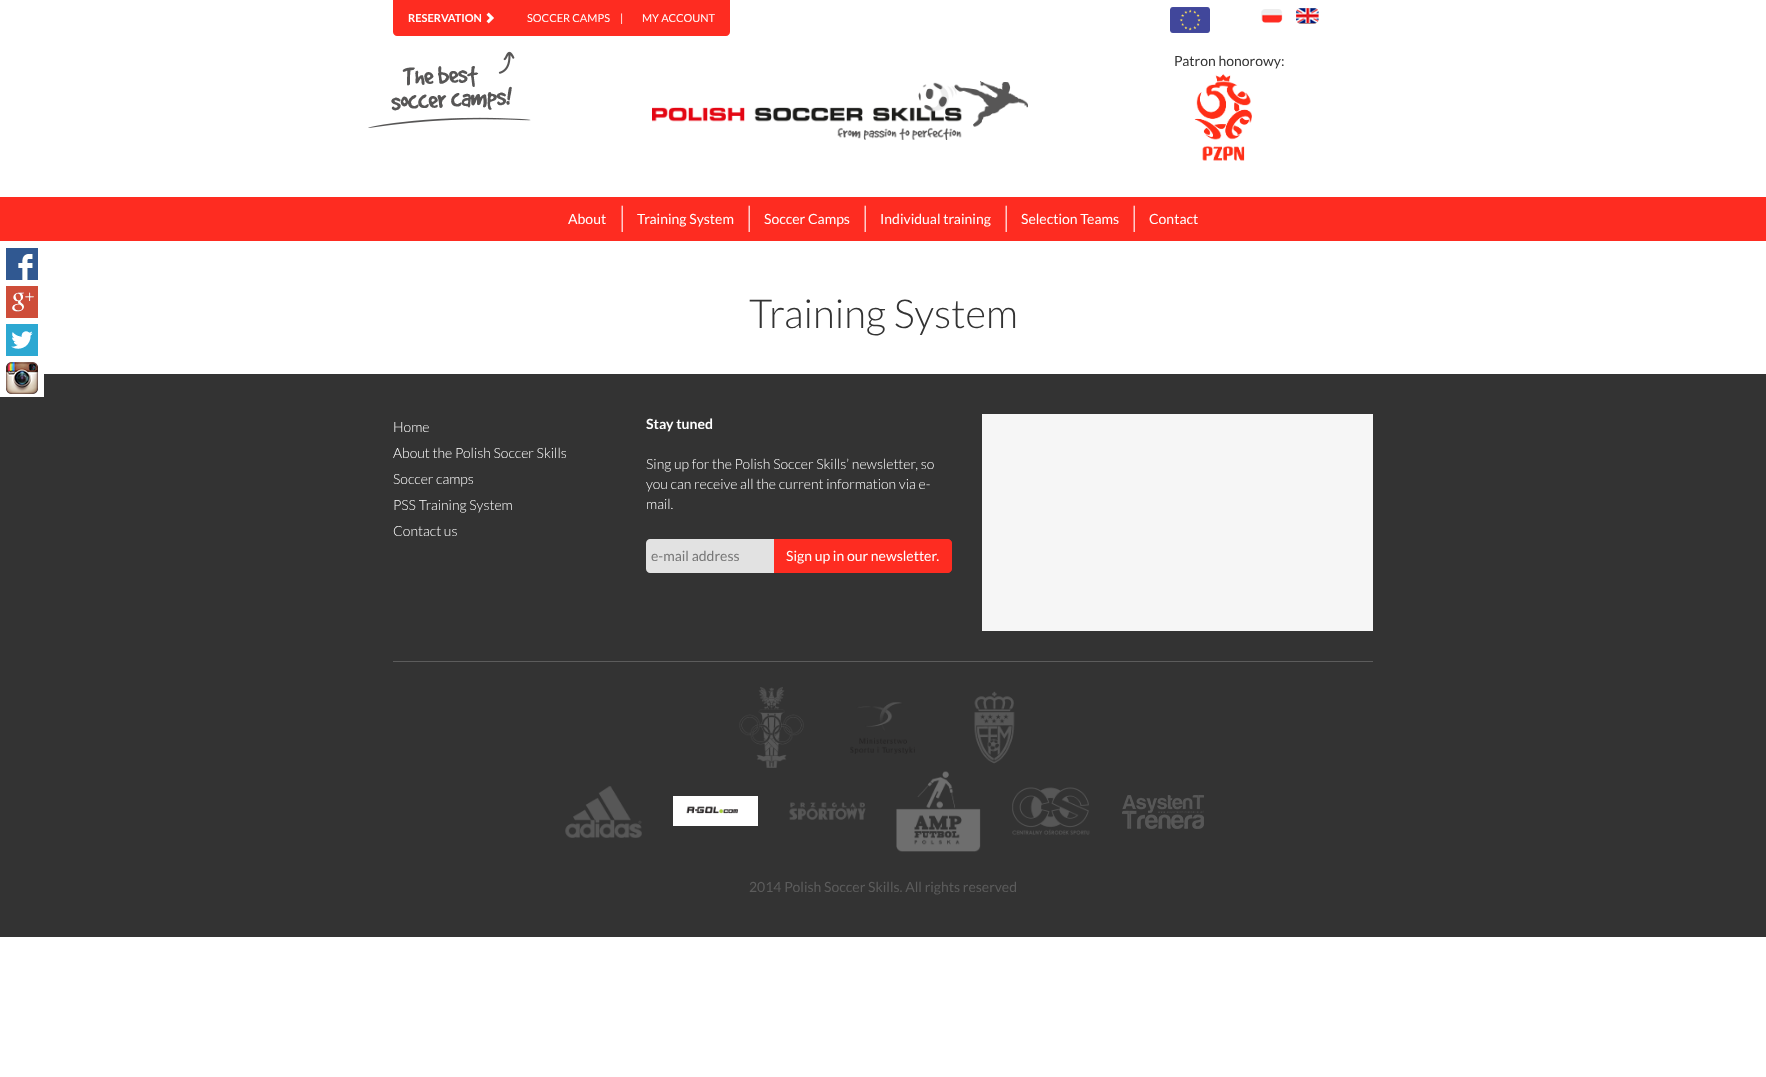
<svg xmlns="http://www.w3.org/2000/svg" width="1766" height="1077" viewBox="0 0 1766 1077">
  <rect width="100%" height="100%" fill="#ffffff"/>
  <path d="M393 0H730V32C730 34 728 36 726 36H397C395 36 393 34 393 32Z" fill="#fe2c21"/>
  <text x="408" y="22" font-family="Lato" font-size="11" font-weight="bold" fill="#ffffff">RESERVATION</text>
  <image x="486" y="12" width="8" height="12" href="img1.png"/>
  <text x="527" y="22" font-family="Lato" font-size="11" fill="#ffffff">SOCCER CAMPS</text>
  <text x="620" y="22" font-family="Lato" font-size="11" fill="#ffffff">|</text>
  <text x="642" y="22" font-family="Lato" font-size="11" fill="#ffffff">MY ACCOUNT</text>
  <image x="1170" y="7" width="40" height="26" href="img2.png"/>
  <image x="1261" y="9" width="22" height="14" href="img3.png"/>
  <image x="1296" y="8" width="23" height="16" href="img4.png"/>
  <image x="368" y="51" width="163" height="77" href="img5.png"/>
  <text x="1174" y="66" font-family="Lato" font-size="14" fill="#333333">Patron honorowy:</text>
  <image x="1194" y="74" width="58" height="87" href="img6.png"/>
  <image x="652" y="81" width="376" height="59" href="img7.png"/>
  <rect x="0" y="197" width="1766" height="44" fill="#fe2c21"/>
  <text x="568" y="224" font-family="Lato" font-size="14" fill="#ffffff">About</text>
  <text x="618" y="227" font-family="Lato" font-size="28" font-weight="300" fill="#ffffff">|</text>
  <text x="637" y="224" font-family="Lato" font-size="14" fill="#ffffff">Training System</text>
  <text x="745" y="227" font-family="Lato" font-size="28" font-weight="300" fill="#ffffff">|</text>
  <text x="764" y="224" font-family="Lato" font-size="14" fill="#ffffff">Soccer Camps</text>
  <text x="861" y="227" font-family="Lato" font-size="28" font-weight="300" fill="#ffffff">|</text>
  <text x="880" y="224" font-family="Lato" font-size="14" fill="#ffffff">Individual training</text>
  <text x="1002" y="227" font-family="Lato" font-size="28" font-weight="300" fill="#ffffff">|</text>
  <text x="1021" y="224" font-family="Lato" font-size="14" fill="#ffffff">Selection Teams</text>
  <text x="1130" y="227" font-family="Lato" font-size="28" font-weight="300" fill="#ffffff">|</text>
  <text x="1149" y="224" font-family="Lato" font-size="14" fill="#ffffff">Contact</text>
  <image x="6" y="248" width="32" height="32" href="img8.png"/>
  <image x="6" y="286" width="32" height="32" href="img9.png"/>
  <image x="6" y="324" width="32" height="32" href="img10.png"/>
  <rect x="0" y="374" width="1766" height="563" fill="#333333"/>
  <rect x="0" y="374" width="44" height="23" fill="#ffffff"/>
  <image x="6" y="362" width="32" height="32" href="img11.png"/>
  <text x="749" y="328" font-family="Lato" font-size="40" font-weight="300" fill="#333333">Training System</text>
  <text x="393" y="432" font-family="Lato" font-size="14" font-weight="300" fill="#ffffff">Home</text>
  <text x="393" y="458" font-family="Lato" font-size="14" font-weight="300" fill="#ffffff">About the Polish Soccer Skills</text>
  <text x="393" y="484" font-family="Lato" font-size="14" font-weight="300" fill="#ffffff">Soccer camps</text>
  <text x="393" y="510" font-family="Lato" font-size="14" font-weight="300" fill="#ffffff">PSS Training System</text>
  <text x="393" y="536" font-family="Lato" font-size="14" font-weight="300" fill="#ffffff">Contact us</text>
  <text x="646" y="429" font-family="Lato" font-size="14" font-weight="bold" fill="#ffffff">Stay tuned</text>
  <text x="646" y="469" font-family="Lato" font-size="14" font-weight="300" fill="#ffffff">Sing up for the Polish Soccer Skills’ newsletter, so</text>
  <text x="646" y="489" font-family="Lato" font-size="14" font-weight="300" fill="#ffffff">you can receive all the current information via e-</text>
  <text x="646" y="509" font-family="Lato" font-size="14" font-weight="300" fill="#ffffff">mail.</text>
  <path d="M773.5 539.5H948C950 539.5 951.5 541 951.5 543V569C951.5 571 950 572.5 948 572.5H773.5Z" fill="#fe2c21" stroke="#fe2c21"/>
  <path d="M650 539H774V573H650C648 573 646 571 646 569V543C646 541 648 539 650 539Z" fill="#e2e2e2"/>
  <text x="651" y="561" font-family="Lato" font-size="14" fill="#777777">e-mail address</text>
  <text x="786" y="561" font-family="Lato" font-size="14" fill="#ffffff">Sign up in our newsletter.</text>
  <rect x="982" y="414" width="391" height="217" fill="#f6f6f6"/>
  <rect x="393" y="661" width="980" height="1" fill="#5c5c5c"/>
  <image x="739" y="687" width="65" height="81" href="img12.png"/>
  <image x="850" y="702" width="65" height="52" href="img13.png"/>
  <image x="974" y="691" width="41" height="73" href="img14.png"/>
  <image x="565" y="786" width="77" height="52" href="img15.png"/>
  <image x="673" y="796" width="85" height="30" href="img16.png"/>
  <image x="789" y="802" width="77" height="18" href="img17.png"/>
  <image x="896" y="771" width="85" height="81" href="img18.png"/>
  <image x="1012" y="787" width="78" height="48" href="img19.png"/>
  <image x="1122" y="795" width="82" height="34" href="img20.png"/>
  <text x="749" y="892" font-family="Lato" font-size="14" fill="#5c5c5c">2014 Polish Soccer Skills. All rights reserved</text>
</svg>
